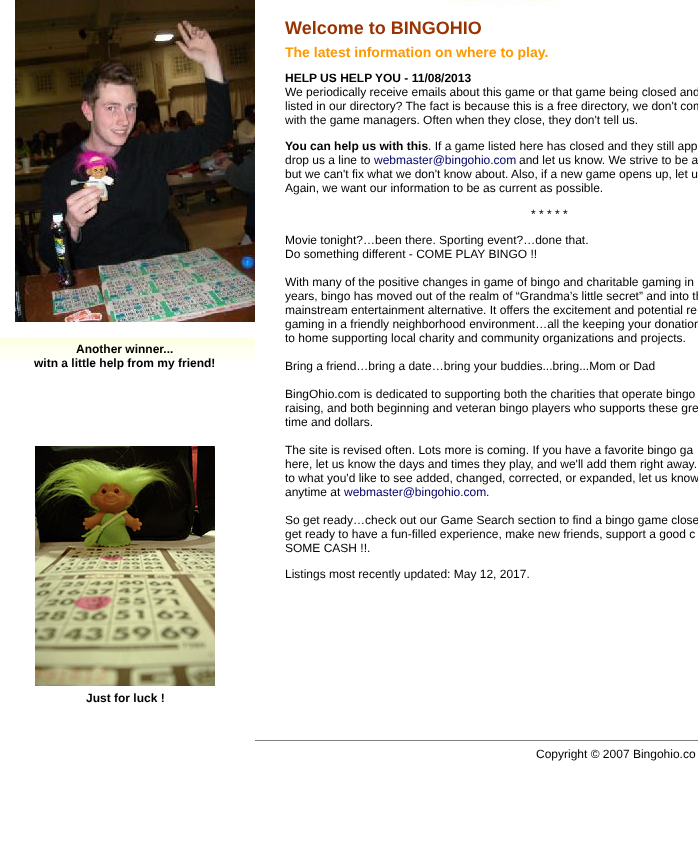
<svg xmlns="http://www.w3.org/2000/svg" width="698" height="862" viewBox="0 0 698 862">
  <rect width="100%" height="100%" fill="#ffffff"/>
  <image x="0" y="337" width="255" height="25" href="img1.png"/>
  <image x="15" y="0" width="240" height="322" href="img2.png"/>
  <text x="76" y="353" font-family="Liberation Sans" font-size="12" font-weight="bold" fill="#000000">Another winner...</text>
  <text x="34" y="367" font-family="Liberation Sans" font-size="12" font-weight="bold" fill="#000000">witn a little help from my friend!</text>
  <image x="35" y="446" width="180" height="240" href="img3.png"/>
  <text x="86" y="702" font-family="Liberation Sans" font-size="12" font-weight="bold" fill="#000000">Just for luck !</text>
  <image x="447" y="0" width="112" height="7" href="img4.png"/>
  <text x="285" y="34" font-family="Liberation Sans" font-size="18" font-weight="bold" fill="#993300">Welcome to BINGOHIO</text>
  <text x="285" y="57" font-family="Liberation Sans" font-size="14" font-weight="bold" fill="#ff9900">The latest information on where to play.</text>
  <text x="285" y="82" font-family="Liberation Sans" font-size="12" font-weight="bold" fill="#000000">HELP US HELP YOU - 11/08/2013</text>
  <text x="285" y="96" font-family="Liberation Sans" font-size="12" fill="#000000">We periodically receive emails about this game or that game being closed and</text>
  <text x="285" y="110" font-family="Liberation Sans" font-size="12" fill="#000000">listed in our directory? The fact is because this is a free directory, we don't com</text>
  <text x="285" y="124" font-family="Liberation Sans" font-size="12" fill="#000000">with the game managers. Often when they close, they don't tell us.</text>
  <text x="285" y="150" font-family="Liberation Sans" font-size="12" font-weight="bold" fill="#000000">You can help us with this</text>
  <text x="428" y="150" font-family="Liberation Sans" font-size="12" fill="#000000">. If a game listed here has closed and they still app</text>
  <text x="285" y="164" font-family="Liberation Sans" font-size="12" fill="#000000">drop us a line to</text>
  <text x="374" y="164" font-family="Liberation Sans" font-size="12" fill="#000066">webmaster@bingohio.com</text>
  <text x="519" y="164" font-family="Liberation Sans" font-size="12" fill="#000000">and let us know. We strive to be a</text>
  <text x="285" y="178" font-family="Liberation Sans" font-size="12" fill="#000000">but we can't fix what we don't know about. Also, if a new game opens up, let u</text>
  <text x="285" y="192" font-family="Liberation Sans" font-size="12" fill="#000000">Again, we want our information to be as current as possible.</text>
  <text x="531" y="218" font-family="Liberation Sans" font-size="12" fill="#000000">* * * * *</text>
  <text x="285" y="244" font-family="Liberation Sans" font-size="12" fill="#000000">Movie tonight?…been there. Sporting event?…done that.</text>
  <text x="285" y="258" font-family="Liberation Sans" font-size="12" fill="#000000">Do something different - COME PLAY BINGO !!</text>
  <text x="285" y="286" font-family="Liberation Sans" font-size="12" fill="#000000">With many of the positive changes in game of bingo and charitable gaming in</text>
  <text x="285" y="300" font-family="Liberation Sans" font-size="12" fill="#000000">years, bingo has moved out of the realm of “Grandma’s little secret” and into th</text>
  <text x="285" y="314" font-family="Liberation Sans" font-size="12" fill="#000000">mainstream entertainment alternative. It offers the excitement and potential re</text>
  <text x="285" y="328" font-family="Liberation Sans" font-size="12" fill="#000000">gaming in a friendly neighborhood environment…all the keeping your donation</text>
  <text x="285" y="342" font-family="Liberation Sans" font-size="12" fill="#000000">to home supporting local charity and community organizations and projects.</text>
  <text x="285" y="370" font-family="Liberation Sans" font-size="12" fill="#000000">Bring a friend…bring a date…bring your buddies...bring...Mom or Dad</text>
  <text x="285" y="398" font-family="Liberation Sans" font-size="12" fill="#000000">BingOhio.com is dedicated to supporting both the charities that operate bingo</text>
  <text x="285" y="412" font-family="Liberation Sans" font-size="12" fill="#000000">raising, and both beginning and veteran bingo players who supports these gre</text>
  <text x="285" y="426" font-family="Liberation Sans" font-size="12" fill="#000000">time and dollars.</text>
  <text x="285" y="454" font-family="Liberation Sans" font-size="12" fill="#000000">The site is revised often. Lots more is coming. If you have a favorite bingo ga</text>
  <text x="285" y="468" font-family="Liberation Sans" font-size="12" fill="#000000">here, let us know the days and times they play, and we'll add them right away.</text>
  <text x="285" y="482" font-family="Liberation Sans" font-size="12" fill="#000000">to what you'd like to see added, changed, corrected, or expanded, let us know</text>
  <text x="285" y="496" font-family="Liberation Sans" font-size="12" fill="#000000">anytime at</text>
  <text x="344" y="496" font-family="Liberation Sans" font-size="12" fill="#000066">webmaster@bingohio.com</text>
  <text x="486" y="496" font-family="Liberation Sans" font-size="12" fill="#000000">.</text>
  <text x="285" y="524" font-family="Liberation Sans" font-size="12" fill="#000000">So get ready…check out our Game Search section to find a bingo game close</text>
  <text x="285" y="538" font-family="Liberation Sans" font-size="12" fill="#000000">get ready to have a fun-filled experience, make new friends, support a good c</text>
  <text x="285" y="552" font-family="Liberation Sans" font-size="12" fill="#000000">SOME CASH !!.</text>
  <text x="285" y="578" font-family="Liberation Sans" font-size="12" fill="#000000">Listings most recently updated: May 12, 2017.</text>
  <rect x="255" y="740" width="443" height="1" fill="#808080"/>
  <text x="536" y="758" font-family="Liberation Sans" font-size="12" fill="#000000">Copyright © 2007 Bingohio.co</text>
</svg>
